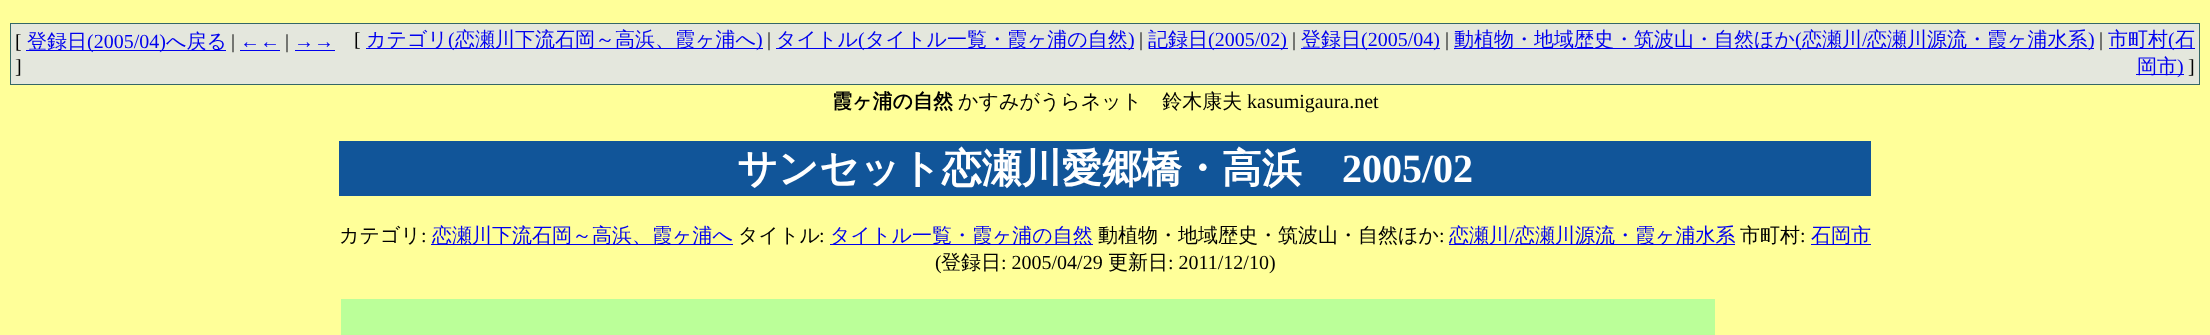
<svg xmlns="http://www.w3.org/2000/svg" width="2210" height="335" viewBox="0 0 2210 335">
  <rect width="100%" height="100%" fill="#ffff99"/>
  <rect x="10" y="23" width="2190" height="62" fill="#346767"/>
  <rect x="11" y="24" width="2188" height="60" fill="#e4e7dd"/>
  <text x="15" y="48" font-family="Liberation Serif" font-size="20" fill="#000000">[</text>
  <rect x="26" y="50" width="200" height="1" fill="#0000ee"/>
  <text x="27" y="48" font-family="WenQuanYi Zen Hei" font-size="20" font-weight="500" fill="#0000ee">登録日</text>
  <text x="87" y="48" font-family="Liberation Serif" font-size="20" fill="#0000ee">(2005/04)</text>
  <text x="166" y="48" font-family="WenQuanYi Zen Hei" font-size="20" font-weight="500" fill="#0000ee">へ戻る</text>
  <text x="231" y="48" font-family="Liberation Serif" font-size="20" fill="#000000">|</text>
  <text x="240" y="48" font-family="Liberation Serif" font-size="20" fill="#0000ee">←←</text>
  <rect x="240" y="50" width="40" height="1" fill="#0000ee"/>
  <text x="285" y="48" font-family="Liberation Serif" font-size="20" fill="#000000">|</text>
  <text x="294" y="48" font-family="Liberation Serif" font-size="20" fill="#0000ee">→→</text>
  <rect x="295" y="50" width="40" height="1" fill="#0000ee"/>
  <text x="15" y="73" font-family="Liberation Serif" font-size="20" fill="#000000">]</text>
  <text x="354" y="46" font-family="Liberation Serif" font-size="20" fill="#000000">[</text>
  <rect x="366" y="48" width="397" height="1" fill="#0000ee"/>
  <text x="366" y="46" font-family="WenQuanYi Zen Hei" font-size="20" font-weight="500" fill="#0000ee">カテゴリ</text>
  <text x="448" y="46" font-family="Liberation Serif" font-size="20" fill="#0000ee">(</text>
  <text x="455" y="46" font-family="WenQuanYi Zen Hei" font-size="20" font-weight="500" fill="#0000ee">恋瀬川下流石岡～高浜、霞ヶ浦へ</text>
  <text x="756" y="46" font-family="Liberation Serif" font-size="20" fill="#0000ee">)</text>
  <text x="767" y="46" font-family="Liberation Serif" font-size="20" fill="#000000">|</text>
  <rect x="776" y="48" width="358" height="1" fill="#0000ee"/>
  <text x="776" y="46" font-family="WenQuanYi Zen Hei" font-size="20" font-weight="500" fill="#0000ee">タイトル</text>
  <text x="858" y="46" font-family="Liberation Serif" font-size="20" fill="#0000ee">(</text>
  <text x="865" y="46" font-family="WenQuanYi Zen Hei" font-size="20" font-weight="500" fill="#0000ee">タイトル一覧・霞ヶ浦の自然</text>
  <text x="1128" y="46" font-family="Liberation Serif" font-size="20" fill="#0000ee">)</text>
  <text x="1139" y="46" font-family="Liberation Serif" font-size="20" fill="#000000">|</text>
  <rect x="1149" y="48" width="139" height="1" fill="#0000ee"/>
  <text x="1148" y="46" font-family="WenQuanYi Zen Hei" font-size="20" font-weight="500" fill="#0000ee">記録日</text>
  <text x="1208" y="46" font-family="Liberation Serif" font-size="20" fill="#0000ee">(2005/02)</text>
  <text x="1292" y="46" font-family="Liberation Serif" font-size="20" fill="#000000">|</text>
  <rect x="1301" y="48" width="139" height="1" fill="#0000ee"/>
  <text x="1301" y="46" font-family="WenQuanYi Zen Hei" font-size="20" font-weight="500" fill="#0000ee">登録日</text>
  <text x="1361" y="46" font-family="Liberation Serif" font-size="20" fill="#0000ee">(2005/04)</text>
  <text x="1445" y="46" font-family="Liberation Serif" font-size="20" fill="#000000">|</text>
  <rect x="1454" y="48" width="640" height="1" fill="#0000ee"/>
  <text x="1454" y="46" font-family="WenQuanYi Zen Hei" font-size="20" font-weight="500" fill="#0000ee">動植物・地域歴史・筑波山・自然ほか</text>
  <text x="1795" y="46" font-family="Liberation Serif" font-size="20" fill="#0000ee">(</text>
  <text x="1802" y="46" font-family="WenQuanYi Zen Hei" font-size="20" font-weight="500" fill="#0000ee">恋瀬川</text>
  <text x="1862" y="46" font-family="Liberation Serif" font-size="20" fill="#0000ee">/</text>
  <text x="1867" y="46" font-family="WenQuanYi Zen Hei" font-size="20" font-weight="500" fill="#0000ee">恋瀬川源流・霞ヶ浦水系</text>
  <text x="2088" y="46" font-family="Liberation Serif" font-size="20" fill="#0000ee">)</text>
  <text x="2099" y="46" font-family="Liberation Serif" font-size="20" fill="#000000">|</text>
  <rect x="2109" y="48" width="86" height="1" fill="#0000ee"/>
  <text x="2108" y="46" font-family="WenQuanYi Zen Hei" font-size="20" font-weight="500" fill="#0000ee">市町村</text>
  <text x="2168" y="46" font-family="Liberation Serif" font-size="20" fill="#0000ee">(</text>
  <text x="2175" y="46" font-family="WenQuanYi Zen Hei" font-size="20" font-weight="500" fill="#0000ee">石</text>
  <rect x="2136" y="74" width="48" height="1" fill="#0000ee"/>
  <text x="2137" y="73" font-family="WenQuanYi Zen Hei" font-size="20" font-weight="500" fill="#0000ee">岡市</text>
  <text x="2177" y="73" font-family="Liberation Serif" font-size="20" fill="#0000ee">)</text>
  <text x="2188" y="73" font-family="Liberation Serif" font-size="20" fill="#000000">]</text>
  <text x="832" y="108" font-family="WenQuanYi Zen Hei" font-size="20" font-weight="bold" fill="#000000">霞ヶ浦の自然</text>
  <text x="958" y="108" font-family="WenQuanYi Zen Hei" font-size="20" font-weight="500" fill="#000000">かすみがうらネット　鈴木康夫</text>
  <text x="1247" y="108" font-family="Liberation Serif" font-size="20" fill="#000000">kasumigaura.net</text>
  <rect x="339" y="141" width="1532" height="55" fill="#115599"/>
  <text x="737" y="182" font-family="WenQuanYi Zen Hei" font-size="40" font-weight="bold" fill="#ffffff">サンセット恋瀬川愛郷橋・高浜</text>
  <text x="1342" y="182" font-family="Liberation Serif" font-size="40" font-weight="bold" fill="#ffffff">2005/02</text>
  <text x="339" y="242" font-family="WenQuanYi Zen Hei" font-size="20" font-weight="500" fill="#000000">カテゴリ</text>
  <text x="421" y="242" font-family="Liberation Serif" font-size="20" fill="#000000">:</text>
  <rect x="431" y="244" width="302" height="1" fill="#0000ee"/>
  <text x="432" y="242" font-family="WenQuanYi Zen Hei" font-size="20" font-weight="500" fill="#0000ee">恋瀬川下流石岡～高浜、霞ヶ浦へ</text>
  <text x="738" y="242" font-family="WenQuanYi Zen Hei" font-size="20" font-weight="500" fill="#000000">タイトル</text>
  <text x="819" y="242" font-family="Liberation Serif" font-size="20" fill="#000000">:</text>
  <rect x="830" y="244" width="263" height="1" fill="#0000ee"/>
  <text x="830" y="242" font-family="WenQuanYi Zen Hei" font-size="20" font-weight="500" fill="#0000ee">タイトル一覧・霞ヶ浦の自然</text>
  <text x="1098" y="242" font-family="WenQuanYi Zen Hei" font-size="20" font-weight="500" fill="#000000">動植物・地域歴史・筑波山・自然ほか</text>
  <text x="1439" y="242" font-family="Liberation Serif" font-size="20" fill="#000000">:</text>
  <rect x="1449" y="244" width="286" height="1" fill="#0000ee"/>
  <text x="1449" y="242" font-family="WenQuanYi Zen Hei" font-size="20" font-weight="500" fill="#0000ee">恋瀬川</text>
  <text x="1509" y="242" font-family="Liberation Serif" font-size="20" fill="#0000ee">/</text>
  <text x="1515" y="242" font-family="WenQuanYi Zen Hei" font-size="20" font-weight="500" fill="#0000ee">恋瀬川源流・霞ヶ浦水系</text>
  <text x="1740" y="242" font-family="WenQuanYi Zen Hei" font-size="20" font-weight="500" fill="#000000">市町村</text>
  <text x="1800" y="242" font-family="Liberation Serif" font-size="20" fill="#000000">:</text>
  <rect x="1811" y="244" width="60" height="1" fill="#0000ee"/>
  <text x="1811" y="242" font-family="WenQuanYi Zen Hei" font-size="20" font-weight="500" fill="#0000ee">石岡市</text>
  <text x="935" y="269" font-family="Liberation Serif" font-size="20" fill="#000000">(</text>
  <text x="941" y="269" font-family="WenQuanYi Zen Hei" font-size="20" font-weight="500" fill="#000000">登録日</text>
  <text x="1001" y="269" font-family="Liberation Serif" font-size="20" fill="#000000">: 2005/04/29</text>
  <text x="1108" y="269" font-family="WenQuanYi Zen Hei" font-size="20" font-weight="500" fill="#000000">更新日</text>
  <text x="1168" y="269" font-family="Liberation Serif" font-size="20" fill="#000000">: 2011/12/10)</text>
  <rect x="341" y="299" width="1374" height="36" fill="#bbff99"/>
</svg>
